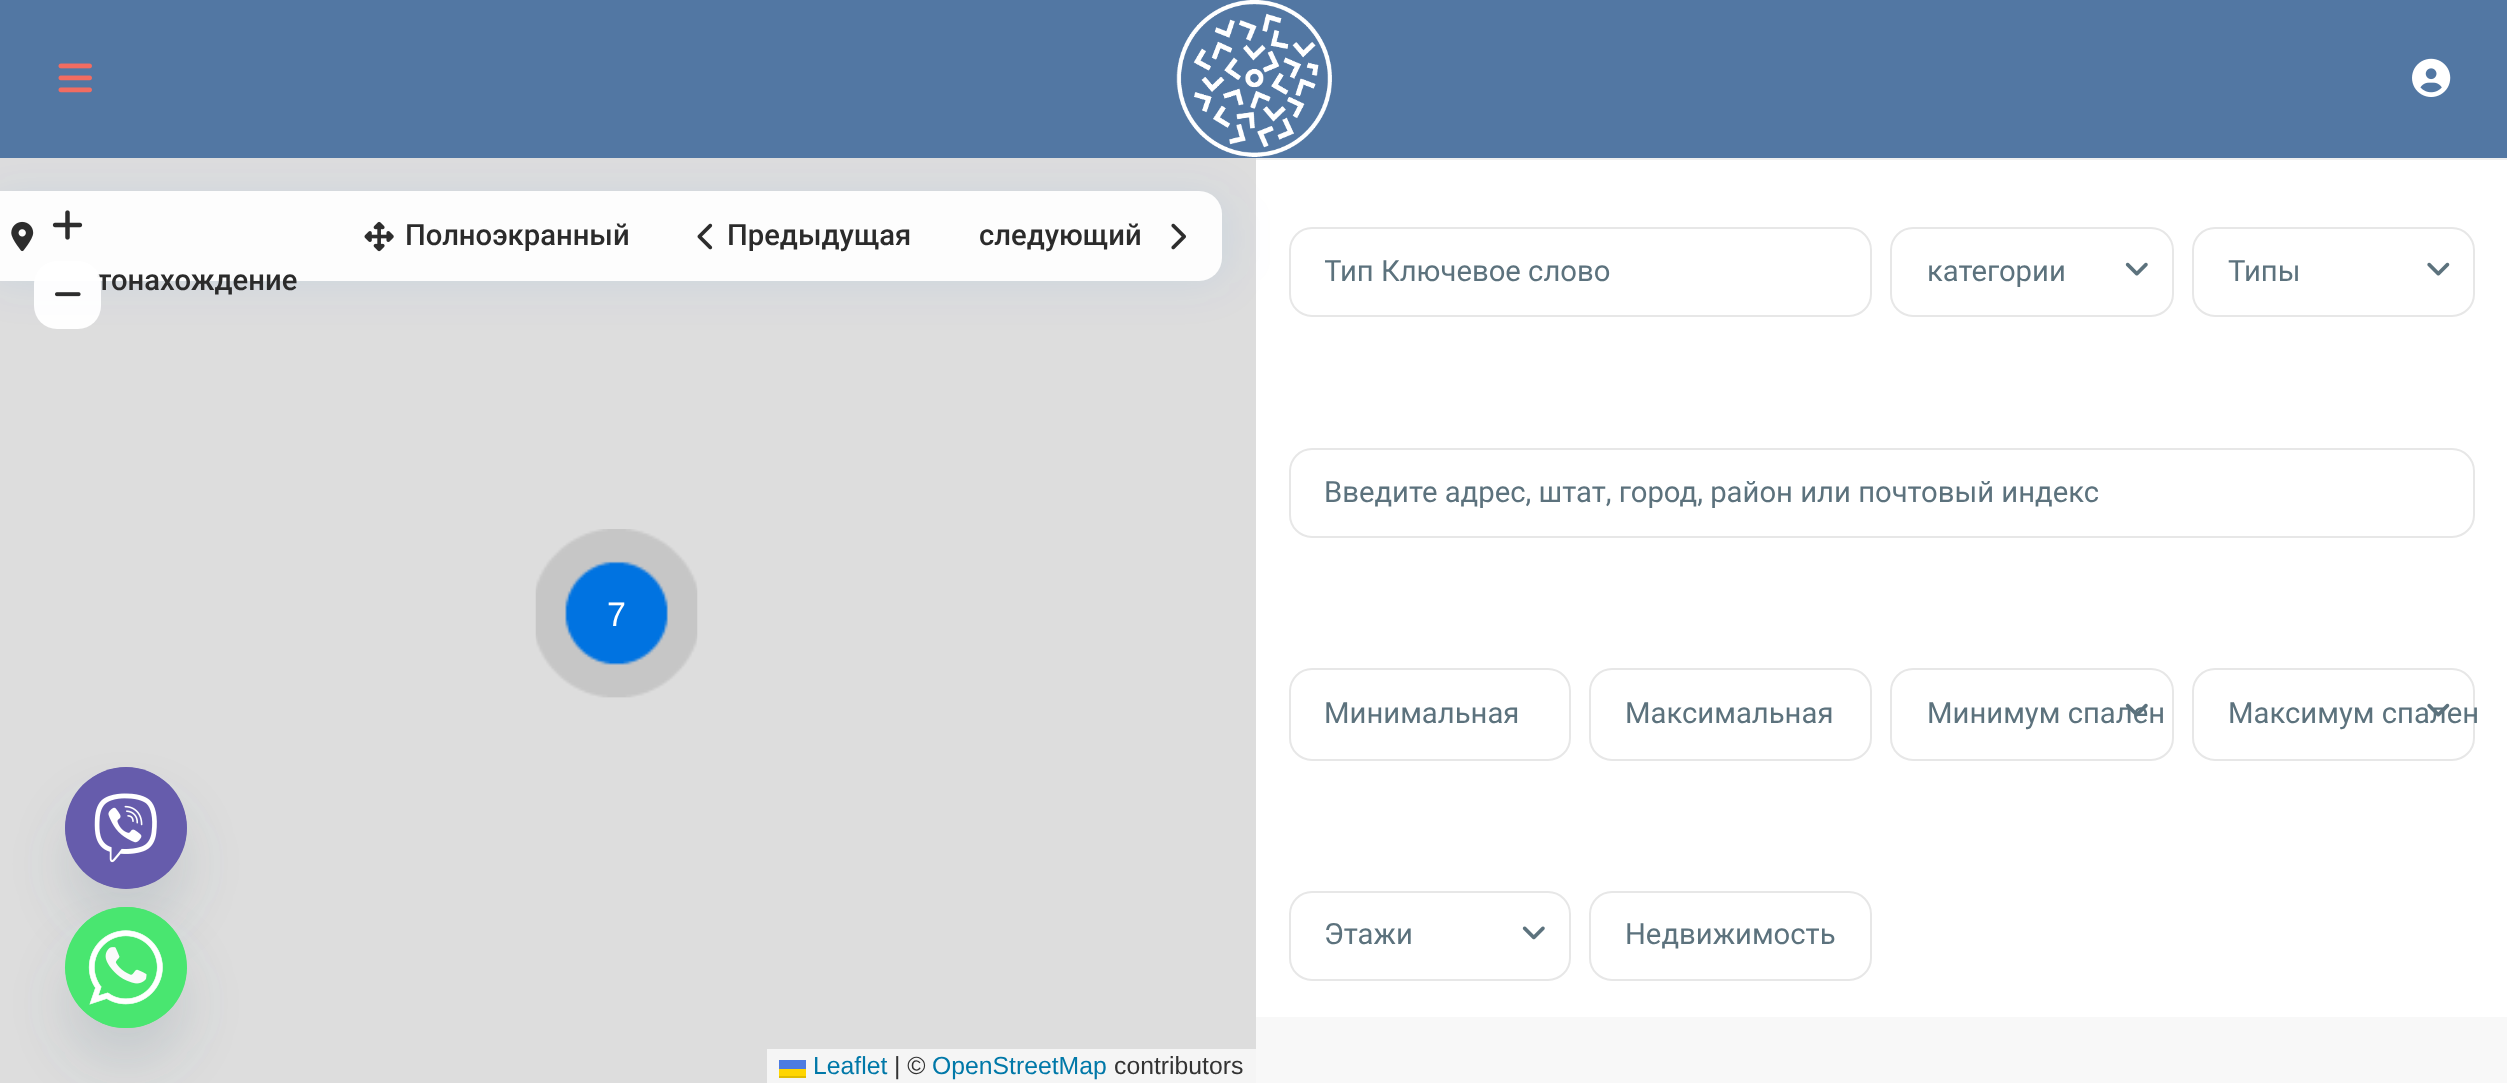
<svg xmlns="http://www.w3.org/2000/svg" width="2507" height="1083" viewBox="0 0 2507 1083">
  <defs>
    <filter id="blur1" x="-50%" y="-200%" width="200%" height="500%"><feGaussianBlur stdDeviation="22.5"/></filter>
    <clipPath id="clip1"><rect x="1325" y="254" width="511" height="34"/></clipPath>
    <filter id="blur2" x="-50%" y="-200%" width="200%" height="500%"><feGaussianBlur stdDeviation="27"/></filter>
  </defs>
  <rect width="100%" height="100%" fill="#f8f8f8"/>
  <rect x="0" y="158" width="1256" height="925" fill="#dddddd"/>
  <rect x="1256" y="160" width="1251" height="857" fill="#ffffff"/>
  <rect x="1256" y="158" width="1251" height="2" fill="#efefef"/>
  <rect x="1290" y="228" width="581" height="88" rx="22" fill="none" stroke="#e7e7e7" stroke-width="2"/>
  <rect x="-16" y="194" width="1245" height="90" rx="23" fill="#006ee1" fill-opacity="0.08" filter="url(#blur1)"/>
  <rect x="0" y="0" width="2507" height="158" fill="#5277a3"/>
  <image x="58" y="63" width="34" height="30" href="img1.png"/>
  <image x="1176" y="0" width="156" height="157" href="img2.png"/>
  <image x="2412" y="58" width="39" height="39" href="img3.png"/>
  <rect x="-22" y="191" width="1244" height="90" rx="23" fill="#fdfdfd"/>
  <image x="52" y="210" width="31" height="30" href="img4.png"/>
  <image x="364" y="221" width="30" height="31" href="img5.png"/>
  <text x="405" y="245" font-family="Roboto" font-size="29.25" font-weight="500" fill="#2b2b2b">Полноэкранный</text>
  <image x="697" y="223" width="16" height="27" href="img6.png"/>
  <text x="727" y="245" font-family="Roboto" font-size="29.25" font-weight="500" fill="#2b2b2b">Предыдущая</text>
  <text x="979" y="245" font-family="Roboto" font-size="29.25" font-weight="500" fill="#2b2b2b">следующий</text>
  <image x="1171" y="223" width="15" height="27" href="img7.png"/>
  <image x="11" y="221" width="23" height="31" href="img8.png"/>
  <text x="97" y="290" font-family="Roboto" font-size="29.25" font-weight="500" fill="#2b2b2b">тонахождение</text>
  <rect x="34" y="261" width="67" height="68" rx="23" fill="#ffffff" fill-opacity="0.95"/>
  <image x="55" y="292" width="26" height="5" href="img9.png"/>
  <image x="535" y="529" width="163" height="169" href="img10.png"/>
  <text x="607" y="626" font-family="Liberation Sans" font-size="34" fill="#ffffff">7</text>
  <rect x="767" y="1049" width="489" height="34" fill="#f5f5f5"/>
  <text x="813" y="1074" font-family="Liberation Sans" font-size="24.75" fill="#0078a8">Leaflet</text>
  <rect x="779" y="1060" width="27" height="9" fill="#4c7be1"/>
  <rect x="779" y="1069" width="27" height="7" fill="#ffd500"/>
  <rect x="779" y="1076" width="27" height="2" fill="#e0bc00"/>
  <text x="894" y="1074" font-family="Liberation Sans" font-size="24.75" fill="#333333">| ©</text>
  <text x="932" y="1074" font-family="Liberation Sans" font-size="24.75" fill="#0078a8">OpenStreetMap</text>
  <text x="1114" y="1074" font-family="Liberation Sans" font-size="24.75" fill="#333333">contributors</text>
  <g clip-path="url(#clip1)">
    <text x="1324" y="281" font-family="Roboto" font-size="29.25" fill="#5c727d">Тип Ключевое слово</text>
  </g>
  <rect x="1891" y="228" width="282" height="88" rx="22" fill="none" stroke="#e7e7e7" stroke-width="2"/>
  <text x="1927" y="281" font-family="Roboto" font-size="29.25" fill="#5c727d">категории</text>
  <image x="2125" y="262" width="23" height="14" href="img11.png"/>
  <rect x="2193" y="228" width="281" height="88" rx="22" fill="none" stroke="#e7e7e7" stroke-width="2"/>
  <text x="2228" y="281" font-family="Roboto" font-size="29.25" fill="#5c727d">Типы</text>
  <image x="2427" y="262" width="23" height="14" href="img12.png"/>
  <rect x="1290" y="449" width="1184" height="88" rx="22" fill="none" stroke="#e7e7e7" stroke-width="2"/>
  <text x="1324" y="502" font-family="Roboto" font-size="29.25" fill="#5c727d">Введите адрес, штат, город, район или почтовый индекс</text>
  <rect x="1290" y="669" width="280" height="91" rx="22" fill="none" stroke="#e7e7e7" stroke-width="2"/>
  <text x="1324" y="723" font-family="Roboto" font-size="29.25" fill="#5c727d">Минимальная</text>
  <rect x="1590" y="669" width="281" height="91" rx="22" fill="none" stroke="#e7e7e7" stroke-width="2"/>
  <text x="1625" y="723" font-family="Roboto" font-size="29.25" fill="#5c727d">Максимальная</text>
  <rect x="1891" y="669" width="282" height="91" rx="22" fill="none" stroke="#e7e7e7" stroke-width="2"/>
  <text x="1927" y="723" font-family="Roboto" font-size="29.25" fill="#5c727d">Минимум спален</text>
  <image x="2125" y="703" width="23" height="14" href="img13.png"/>
  <rect x="2193" y="669" width="281" height="91" rx="22" fill="none" stroke="#e7e7e7" stroke-width="2"/>
  <text x="2228" y="723" font-family="Roboto" font-size="29.25" fill="#5c727d">Максимум спален</text>
  <image x="2427" y="703" width="23" height="14" href="img14.png"/>
  <rect x="1290" y="892" width="280" height="88" rx="22" fill="none" stroke="#e7e7e7" stroke-width="2"/>
  <text x="1324" y="944" font-family="Roboto" font-size="29.25" fill="#5c727d">Этажи</text>
  <image x="1522" y="926" width="23" height="14" href="img15.png"/>
  <rect x="1590" y="892" width="281" height="88" rx="22" fill="none" stroke="#e7e7e7" stroke-width="2"/>
  <text x="1625" y="944" font-family="Roboto" font-size="29.25" fill="#5c727d">Недвижимость</text>
  <rect x="65" y="803" width="122" height="122" rx="61" fill="#49687e" fill-opacity="0.16" filter="url(#blur2)"/>
  <circle cx="126" cy="828" r="61" fill="#665cac"/>
  <image x="65" y="767" width="122" height="122" href="img16.png"/>
  <rect x="65" y="943" width="122" height="121" rx="60.5" fill="#49687e" fill-opacity="0.16" filter="url(#blur2)"/>
  <rect x="65" y="907" width="122" height="121" rx="60.5" fill="#49e670"/>
  <image x="65" y="907" width="122" height="121" href="img17.png"/>
</svg>
